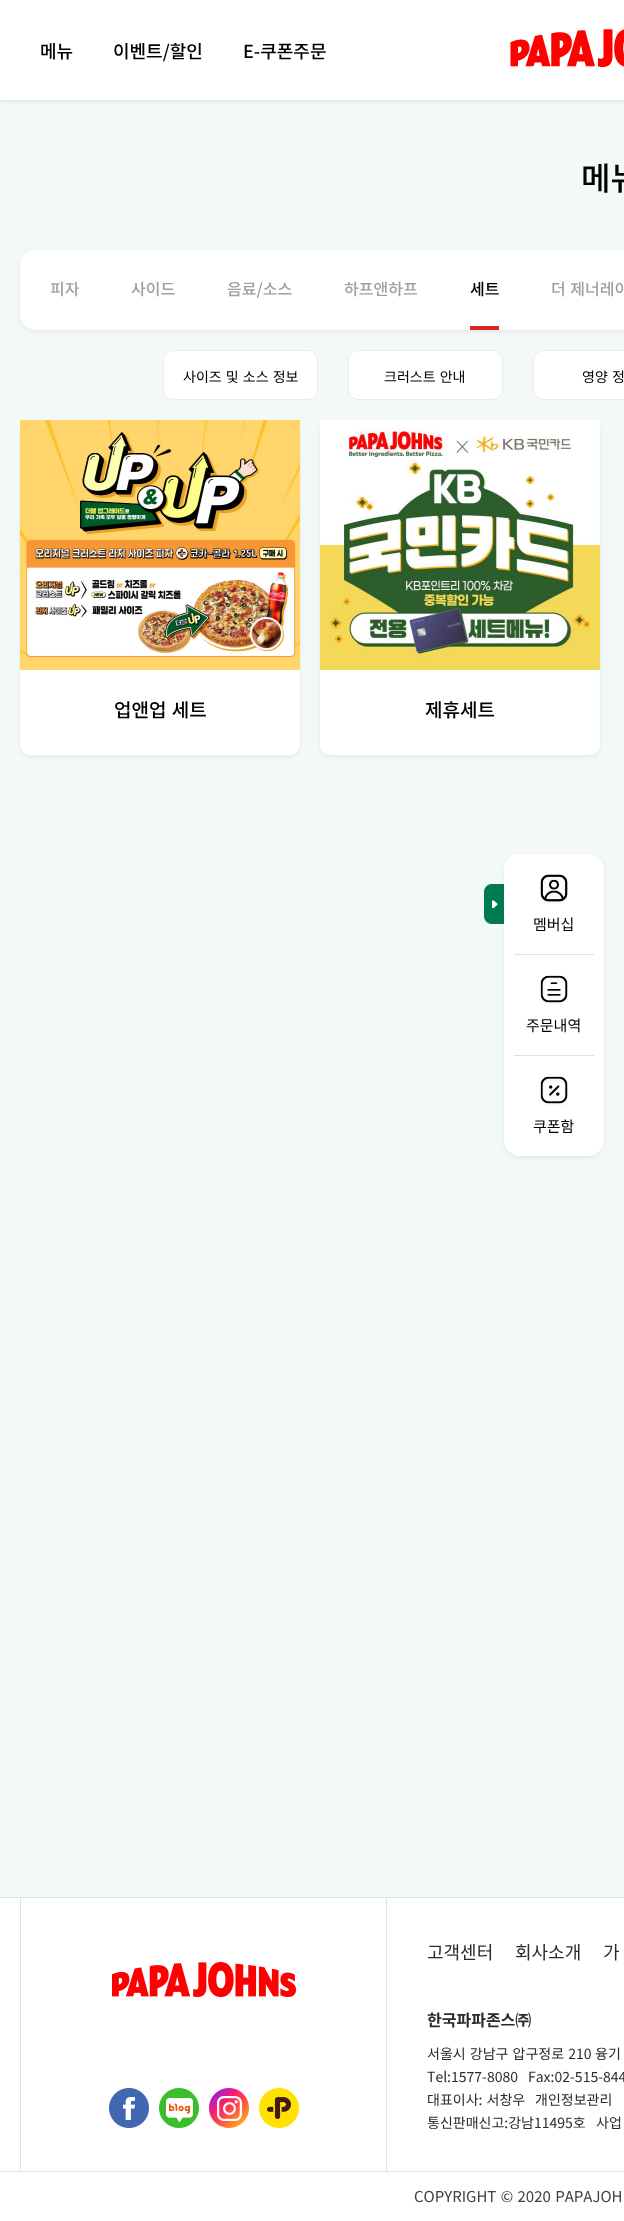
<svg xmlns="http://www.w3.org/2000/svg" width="624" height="2221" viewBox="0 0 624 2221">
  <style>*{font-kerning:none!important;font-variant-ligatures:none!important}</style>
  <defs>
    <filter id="blur1" x="-50%" y="-200%" width="200%" height="500%"><feGaussianBlur stdDeviation="2"/></filter>
  </defs>
  <rect width="100%" height="100%" fill="#f3f8f9"/>
  <rect x="0" y="2" width="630" height="100" fill="#8a959e" fill-opacity="0.15" filter="url(#blur1)"/>
  <rect x="0" y="0" width="624" height="100" fill="#ffffff"/>
  <text x="40" y="58" font-family="Noto Sans KR" font-size="18" font-weight="500" fill="#000000">메뉴</text>
  <text x="113" y="58" font-family="Noto Sans KR" font-size="18" font-weight="500" fill="#000000">이벤트/할인</text>
  <text x="243" y="58" font-family="Noto Sans KR" font-size="18" font-weight="500" fill="#000000">E-쿠폰주문</text>
  <image x="510" y="29" width="114" height="38" href="img1.png"/>
  <rect x="20" y="100" width="604" height="1" fill="#e1e1e1"/>
  <text x="581" y="190" font-family="Noto Sans KR" font-size="32" font-weight="500" fill="#000000">메뉴</text>
  <rect x="20" y="252" width="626" height="80" rx="16" fill="#8a959e" fill-opacity="0.15" filter="url(#blur1)"/>
  <rect x="20" y="250" width="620" height="80" rx="16" fill="#ffffff"/>
  <text x="50" y="295" font-family="Noto Sans KR" font-size="16" font-weight="500" fill="#a0a0a0">피자</text>
  <text x="131" y="295" font-family="Noto Sans KR" font-size="16" font-weight="500" fill="#a0a0a0">사이드</text>
  <text x="227" y="295" font-family="Noto Sans KR" font-size="16" font-weight="500" fill="#a0a0a0">음료/소스</text>
  <text x="344" y="295" font-family="Noto Sans KR" font-size="16" font-weight="500" fill="#a0a0a0">하프앤하프</text>
  <rect x="470" y="326" width="29" height="4" fill="#da291c"/>
  <text x="470" y="295" font-family="Noto Sans KR" font-size="16" font-weight="500" fill="#000000">세트</text>
  <text x="551" y="295" word-spacing="1" font-family="Noto Sans KR" font-size="16" font-weight="500" fill="#a0a0a0">더 제너레이</text>
  <rect x="163.5" y="350.5" width="154" height="49" rx="9.5" fill="#ffffff" stroke="#ebebeb"/>
  <text x="183" y="382" word-spacing="1" font-family="Noto Sans KR" font-size="14" fill="#000000">사이즈 및 소스 정보</text>
  <rect x="348.5" y="350.5" width="154" height="49" rx="9.5" fill="#ffffff" stroke="#ebebeb"/>
  <text x="384" y="382" word-spacing="1" font-family="Noto Sans KR" font-size="14" fill="#000000">크러스트 안내</text>
  <rect x="533.5" y="350.5" width="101" height="49" rx="9.5" fill="#ffffff" stroke="#ebebeb"/>
  <text x="582" y="382" word-spacing="1" font-family="Noto Sans KR" font-size="14" fill="#000000">영양 정</text>
  <rect x="20" y="422" width="280" height="335" rx="10" fill="#8a959e" fill-opacity="0.15" filter="url(#blur1)"/>
  <rect x="20" y="420" width="280" height="335" rx="10" fill="#ffffff"/>
  <image x="20" y="420" width="280" height="250" href="img2.png"/>
  <text x="114" y="717" word-spacing="1" font-family="Noto Sans KR" font-size="19" font-weight="500" fill="#000000">업앤업 세트</text>
  <rect x="320" y="422" width="280" height="335" rx="10" fill="#8a959e" fill-opacity="0.15" filter="url(#blur1)"/>
  <rect x="320" y="420" width="280" height="335" rx="10" fill="#ffffff"/>
  <image x="320" y="420" width="280" height="250" href="img3.png"/>
  <text x="425" y="717" font-family="Noto Sans KR" font-size="19" font-weight="500" fill="#000000">제휴세트</text>
  <rect x="504" y="856" width="100" height="302" rx="16" fill="#8a959e" fill-opacity="0.15" filter="url(#blur1)"/>
  <image x="484" y="884" width="20" height="40" href="img4.png"/>
  <rect x="504" y="854" width="100" height="302" rx="16" fill="#ffffff"/>
  <image x="540" y="874" width="28" height="30" href="img5.png"/>
  <text x="533" y="930" font-family="Noto Sans KR" font-size="15" fill="#000000">멤버십</text>
  <rect x="514" y="954" width="80" height="1" fill="#e1e1e1"/>
  <image x="540" y="975" width="28" height="30" href="img6.png"/>
  <text x="526" y="1031" font-family="Noto Sans KR" font-size="15" fill="#000000">주문내역</text>
  <rect x="514" y="1055" width="80" height="1" fill="#e1e1e1"/>
  <image x="540" y="1076" width="28" height="30" href="img7.png"/>
  <text x="533" y="1132" font-family="Noto Sans KR" font-size="15" fill="#000000">쿠폰함</text>
  <rect x="0" y="1898" width="624" height="323" fill="#ffffff"/>
  <rect x="0" y="1897" width="624" height="1" fill="#e1e1e1"/>
  <rect x="386" y="1898" width="1" height="273" fill="#e1e1e1"/>
  <rect x="20" y="1898" width="1" height="273" fill="#e1e1e1"/>
  <image x="112" y="1962" width="184" height="35" href="img8.png"/>
  <image x="109" y="2088" width="40" height="40" href="img9.png"/>
  <image x="159" y="2088" width="40" height="40" href="img10.png"/>
  <image x="209" y="2088" width="40" height="40" href="img11.png"/>
  <image x="259" y="2088" width="40" height="40" href="img12.png"/>
  <text x="427" y="1959" font-family="Noto Sans KR" font-size="18" fill="#2b2b2b">고객센터</text>
  <text x="515" y="1959" font-family="Noto Sans KR" font-size="18" fill="#2b2b2b">회사소개</text>
  <text x="603" y="1959" word-spacing="1" font-family="Noto Sans KR" font-size="18" fill="#2b2b2b">가</text>
  <text x="427" y="2026" font-family="Noto Sans KR" font-size="16" font-weight="bold" fill="#2b2b2b">한국파파존스㈜</text>
  <text x="427" y="2059" word-spacing="1" font-family="Noto Sans KR" font-size="14" fill="#2b2b2b">서울시 강남구 압구정로 210</text>
  <text x="595" y="2059" word-spacing="1" font-family="Noto Sans KR" font-size="14" fill="#2b2b2b">융기</text>
  <text x="427" y="2082" font-family="Noto Sans KR" font-size="14" fill="#2b2b2b">Tel:1577-8080</text>
  <text x="528" y="2082" font-family="Noto Sans KR" font-size="14" fill="#2b2b2b">Fax:02-515-844</text>
  <text x="427" y="2105" word-spacing="1" font-family="Noto Sans KR" font-size="14" fill="#2b2b2b">대표이사: 서창우</text>
  <text x="535" y="2105" word-spacing="1" font-family="Noto Sans KR" font-size="14" fill="#2b2b2b">개인정보관리</text>
  <text x="427" y="2128" font-family="Noto Sans KR" font-size="14" fill="#2b2b2b">통신판매신고:강남11495호</text>
  <text x="596" y="2128" font-family="Noto Sans KR" font-size="14" fill="#2b2b2b">사업</text>
  <rect x="0" y="2171" width="624" height="1" fill="#e1e1e1"/>
  <text x="414" y="2202" word-spacing="1" font-family="Noto Sans KR" font-size="15" fill="#414141">COPYRIGHT © 2020 PAPAJOH</text>
</svg>
